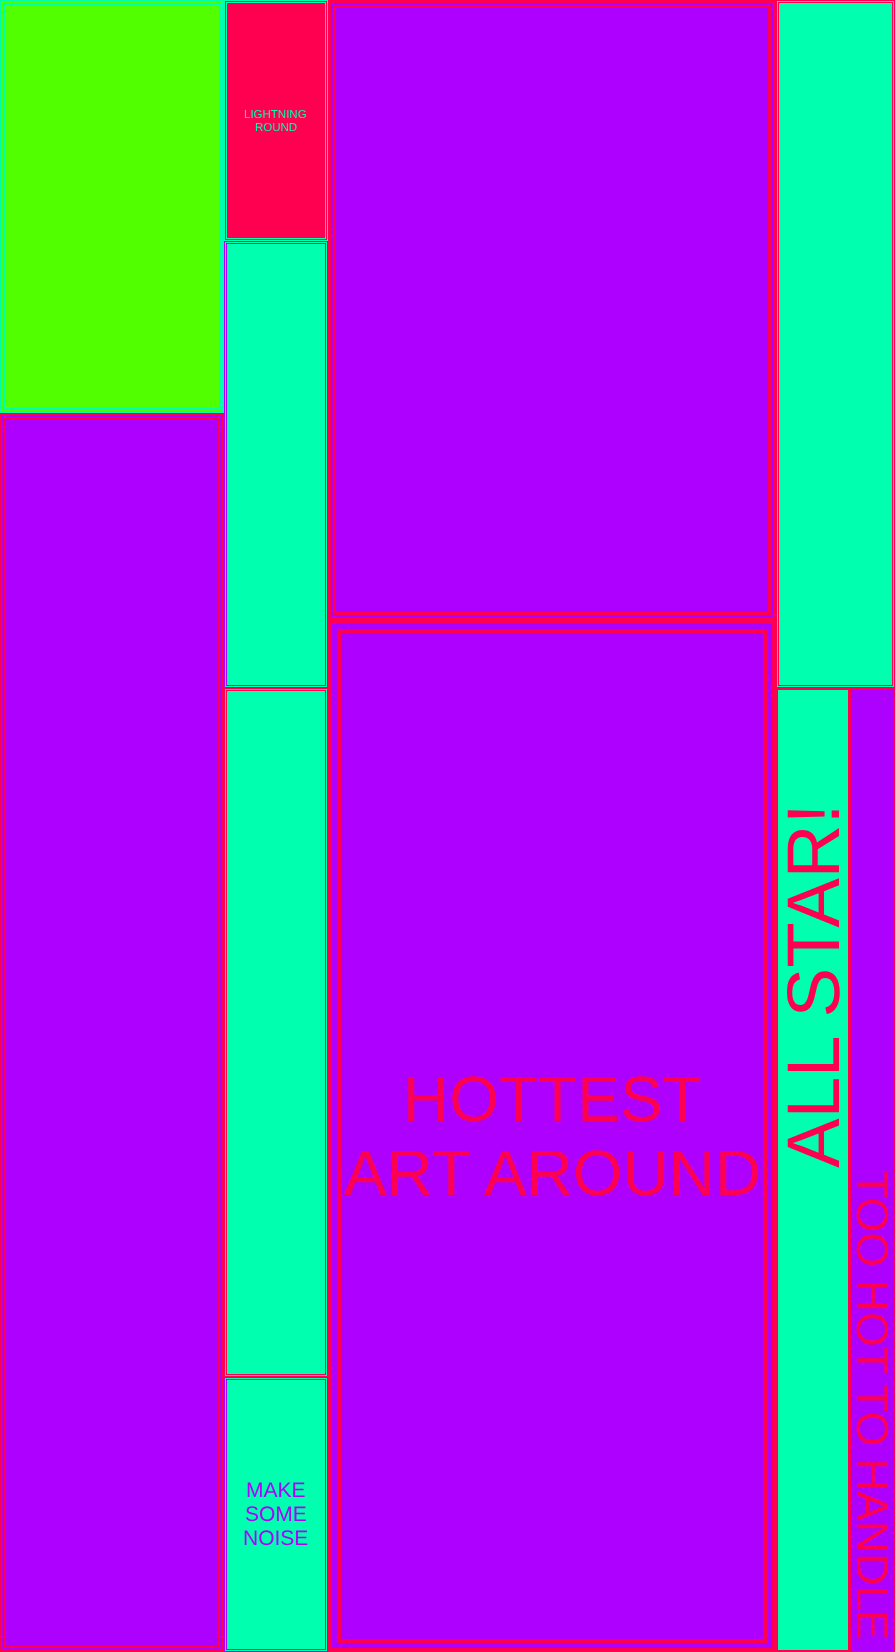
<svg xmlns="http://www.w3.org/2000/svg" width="895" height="1652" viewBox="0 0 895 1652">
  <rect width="100%" height="100%" fill="#51ff00"/>
  <rect x="1" y="1" width="222" height="411" fill="none" stroke="#00ffae" stroke-width="2"/>
  <rect x="4" y="4" width="216" height="405" fill="none" stroke="#00ffae" stroke-width="2"/>
  <rect x="224.5" y="0.5" width="103" height="240" fill="#ff0051" stroke="#00ffae"/>
  <rect x="226.5" y="2.5" width="99" height="236" fill="none" stroke="#00ffae"/>
  <text x="244" y="118" font-family="Liberation Sans" font-size="11.5" fill="#00ffae">LIGHTNING</text>
  <text x="255" y="131" font-family="Liberation Sans" font-size="11.5" fill="#00ffae">ROUND</text>
  <rect x="329.5" y="1.5" width="445" height="617" fill="#ae00ff" stroke="#ff0051" stroke-width="3"/>
  <rect x="334.5" y="6.5" width="435" height="607" fill="none" stroke="#ff0051" stroke-width="3"/>
  <rect x="776.5" y="0.5" width="118" height="687" fill="#00ffae" stroke="#ff0051"/>
  <rect x="778.5" y="2.5" width="114" height="683" fill="none" stroke="#ff0051"/>
  <rect x="1" y="414" width="222" height="1237" fill="#ae00ff" stroke="#ff0051" stroke-width="2"/>
  <rect x="5" y="418" width="214" height="1229" fill="none" stroke="#ff0051" stroke-width="2"/>
  <rect x="224.5" y="241.5" width="103" height="446" fill="#00ffae" stroke="#ae00ff"/>
  <rect x="226.5" y="243.5" width="99" height="442" fill="none" stroke="#ae00ff"/>
  <rect x="224.5" y="688.5" width="103" height="688" fill="#00ffae" stroke="#ff0051"/>
  <rect x="226.5" y="690.5" width="99" height="684" fill="none" stroke="#ff0051"/>
  <rect x="330" y="622" width="444" height="1028" fill="#ae00ff" stroke="#ff0051" stroke-width="4"/>
  <rect x="339" y="631" width="426" height="1010" fill="none" stroke="#ff0051" stroke-width="4"/>
  <text x="403" y="1121" font-family="Liberation Sans" font-size="64" fill="#ff0051">HOTTEST</text>
  <text x="344" y="1195" font-family="Liberation Sans" font-size="64" fill="#ff0051">ART AROUND</text>
  <rect x="777" y="689" width="72" height="962" fill="#00ffae" stroke="#ff0051" stroke-width="2"/>
  <text x="839" y="1168" transform="rotate(-90 839 1168)" font-family="Liberation Sans" font-size="74.5" fill="#ff0051">ALL STAR!</text>
  <rect x="224.5" y="1377.5" width="103" height="274" fill="#00ffae" stroke="#ae00ff"/>
  <rect x="226.5" y="1379.5" width="99" height="270" fill="none" stroke="#ae00ff"/>
  <text x="246" y="1497" font-family="Liberation Sans" font-size="21" fill="#ae00ff">MAKE</text>
  <text x="245" y="1521" font-family="Liberation Sans" font-size="21" fill="#ae00ff">SOME</text>
  <text x="243" y="1545" font-family="Liberation Sans" font-size="21" fill="#ae00ff">NOISE</text>
  <rect x="850.5" y="688.5" width="44" height="963" fill="#ae00ff" stroke="#ff0051"/>
  <text x="857" y="1171" transform="rotate(90 857 1171)" font-family="Liberation Sans" font-size="44.75" fill="#ff0051">TOO HOT TO HANDLE</text>
</svg>
